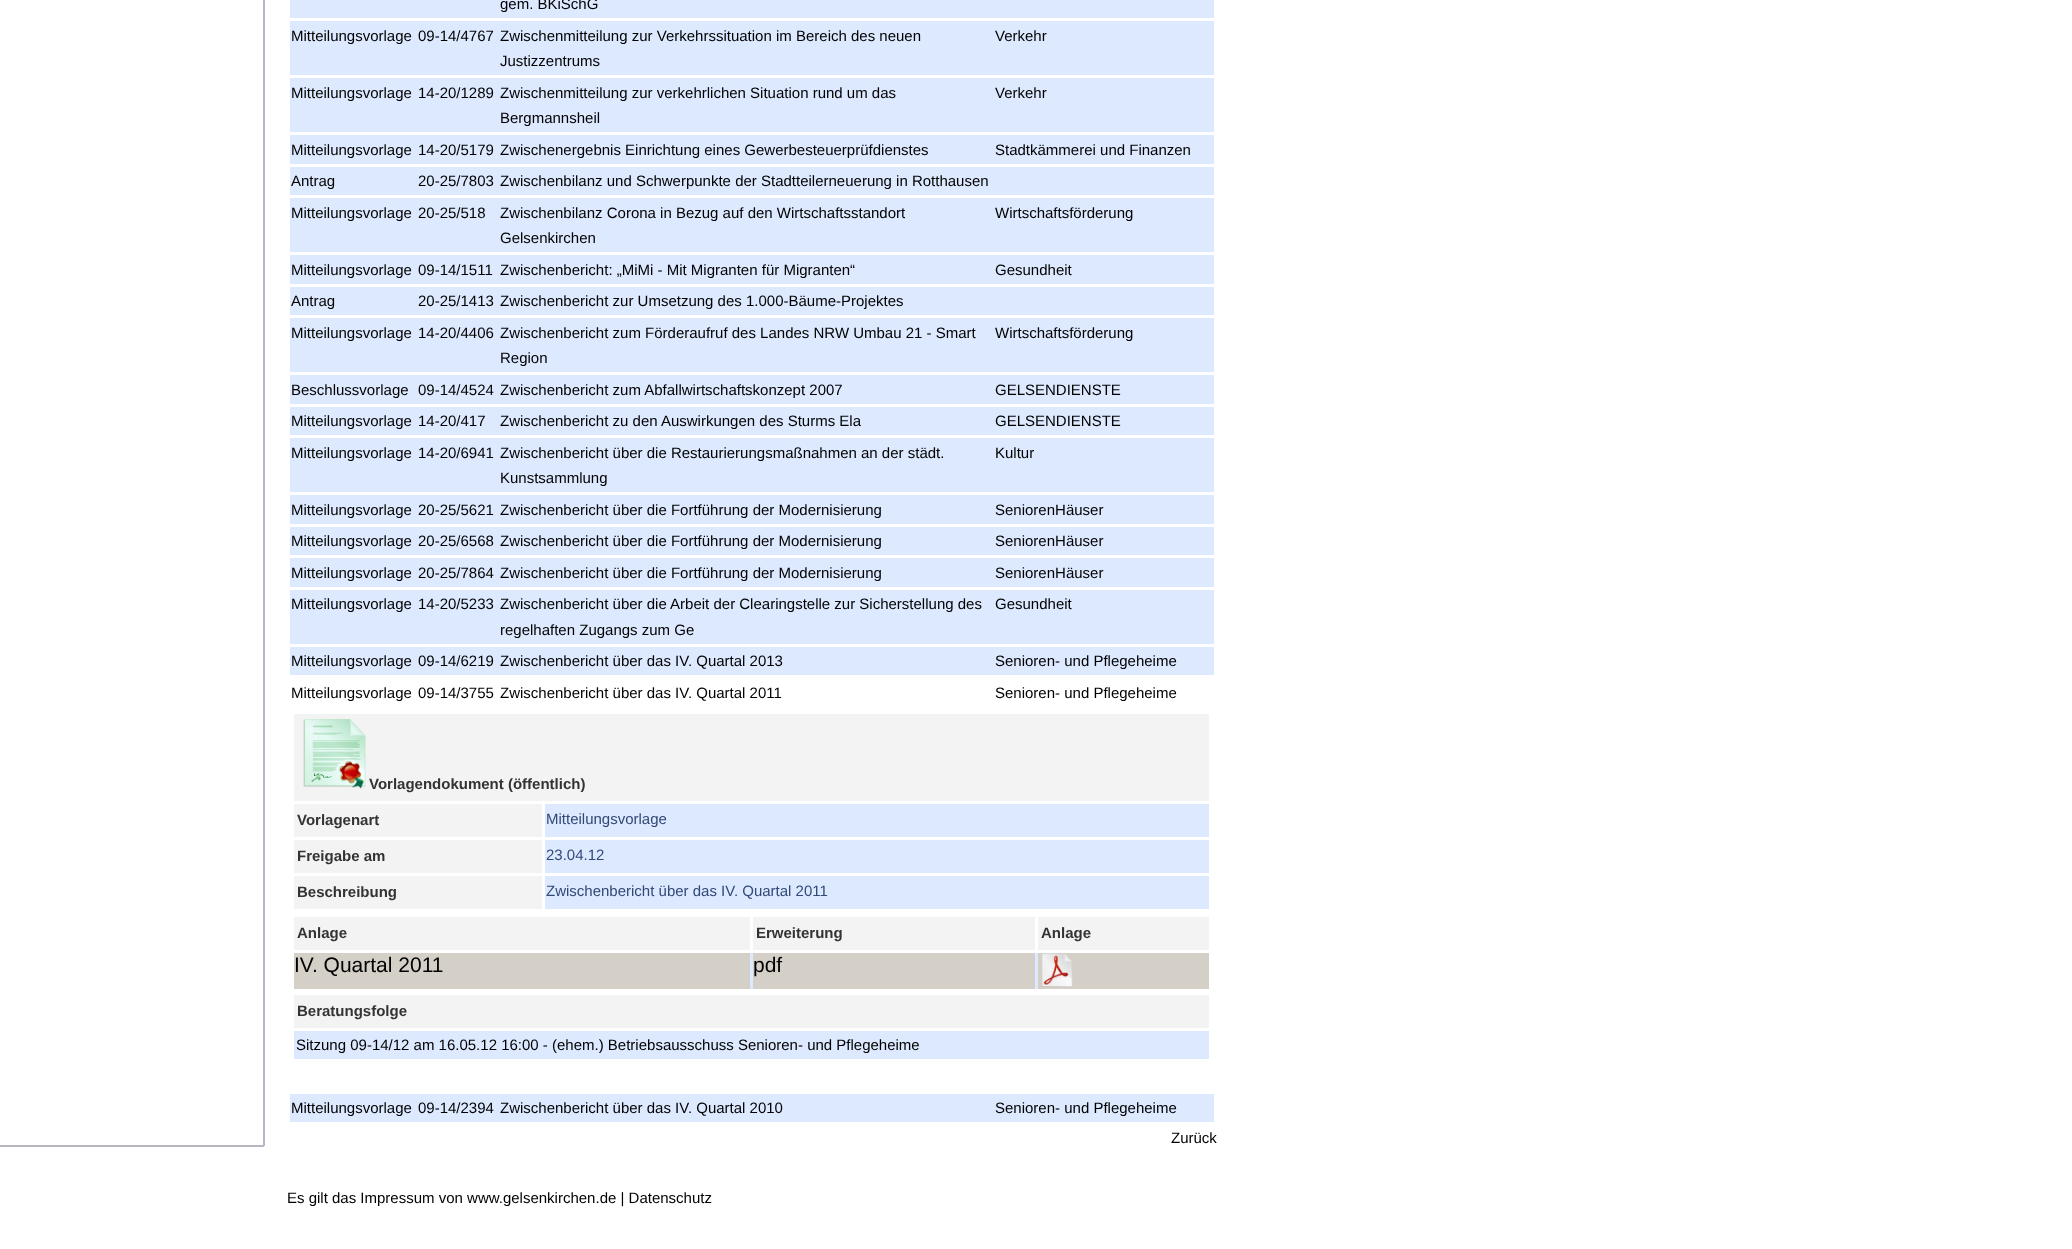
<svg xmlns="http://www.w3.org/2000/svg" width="2072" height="1249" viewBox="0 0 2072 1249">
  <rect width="100%" height="100%" fill="#ffffff"/>
  <rect x="263" y="0" width="2" height="1146" fill="#b5b8c1"/>
  <rect x="0" y="1145" width="264" height="2" fill="#b5b8c1"/>
  <rect x="290" y="0" width="924" height="18" fill="#dde9ff"/>
  <text x="500" y="9" font-family="Liberation Sans" font-size="15" fill="#000000">gem. BKiSchG</text>
  <rect x="290" y="21" width="924" height="54" fill="#dde9ff"/>
  <text x="291" y="41" font-family="Liberation Sans" font-size="15" fill="#000000">Mitteilungsvorlage</text>
  <text x="418" y="41" font-family="Liberation Sans" font-size="15" fill="#000000">09-14/4767</text>
  <text x="500" y="41" font-family="Liberation Sans" font-size="15" fill="#000000">Zwischenmitteilung zur Verkehrssituation im Bereich des neuen</text>
  <text x="500" y="66" font-family="Liberation Sans" font-size="15" fill="#000000">Justizzentrums</text>
  <text x="995" y="41" font-family="Liberation Sans" font-size="15" fill="#000000">Verkehr</text>
  <rect x="290" y="78" width="924" height="54" fill="#dde9ff"/>
  <text x="291" y="98" font-family="Liberation Sans" font-size="15" fill="#000000">Mitteilungsvorlage</text>
  <text x="418" y="98" font-family="Liberation Sans" font-size="15" fill="#000000">14-20/1289</text>
  <text x="500" y="98" font-family="Liberation Sans" font-size="15" fill="#000000">Zwischenmitteilung zur verkehrlichen Situation rund um das</text>
  <text x="500" y="123" font-family="Liberation Sans" font-size="15" fill="#000000">Bergmannsheil</text>
  <text x="995" y="98" font-family="Liberation Sans" font-size="15" fill="#000000">Verkehr</text>
  <rect x="290" y="135" width="924" height="29" fill="#dde9ff"/>
  <text x="291" y="155" font-family="Liberation Sans" font-size="15" fill="#000000">Mitteilungsvorlage</text>
  <text x="418" y="155" font-family="Liberation Sans" font-size="15" fill="#000000">14-20/5179</text>
  <text x="500" y="155" font-family="Liberation Sans" font-size="15" fill="#000000">Zwischenergebnis Einrichtung eines Gewerbesteuerprüfdienstes</text>
  <text x="995" y="155" font-family="Liberation Sans" font-size="15" fill="#000000">Stadtkämmerei und Finanzen</text>
  <rect x="290" y="167" width="924" height="28" fill="#dde9ff"/>
  <text x="291" y="186" font-family="Liberation Sans" font-size="15" fill="#000000">Antrag</text>
  <text x="418" y="186" font-family="Liberation Sans" font-size="15" fill="#000000">20-25/7803</text>
  <text x="500" y="186" font-family="Liberation Sans" font-size="15" fill="#000000">Zwischenbilanz und Schwerpunkte der Stadtteilerneuerung in Rotthausen</text>
  <rect x="290" y="198" width="924" height="54" fill="#dde9ff"/>
  <text x="291" y="218" font-family="Liberation Sans" font-size="15" fill="#000000">Mitteilungsvorlage</text>
  <text x="418" y="218" font-family="Liberation Sans" font-size="15" fill="#000000">20-25/518</text>
  <text x="500" y="218" font-family="Liberation Sans" font-size="15" fill="#000000">Zwischenbilanz Corona in Bezug auf den Wirtschaftsstandort</text>
  <text x="500" y="243" font-family="Liberation Sans" font-size="15" fill="#000000">Gelsenkirchen</text>
  <text x="995" y="218" font-family="Liberation Sans" font-size="15" fill="#000000">Wirtschaftsförderung</text>
  <rect x="290" y="255" width="924" height="29" fill="#dde9ff"/>
  <text x="291" y="275" font-family="Liberation Sans" font-size="15" fill="#000000">Mitteilungsvorlage</text>
  <text x="418" y="275" font-family="Liberation Sans" font-size="15" fill="#000000">09-14/1511</text>
  <text x="500" y="275" font-family="Liberation Sans" font-size="15" fill="#000000">Zwischenbericht: „MiMi - Mit Migranten für Migranten“</text>
  <text x="995" y="275" font-family="Liberation Sans" font-size="15" fill="#000000">Gesundheit</text>
  <rect x="290" y="287" width="924" height="28" fill="#dde9ff"/>
  <text x="291" y="306" font-family="Liberation Sans" font-size="15" fill="#000000">Antrag</text>
  <text x="418" y="306" font-family="Liberation Sans" font-size="15" fill="#000000">20-25/1413</text>
  <text x="500" y="306" font-family="Liberation Sans" font-size="15" fill="#000000">Zwischenbericht zur Umsetzung des 1.000-Bäume-Projektes</text>
  <rect x="290" y="318" width="924" height="54" fill="#dde9ff"/>
  <text x="291" y="338" font-family="Liberation Sans" font-size="15" fill="#000000">Mitteilungsvorlage</text>
  <text x="418" y="338" font-family="Liberation Sans" font-size="15" fill="#000000">14-20/4406</text>
  <text x="500" y="338" font-family="Liberation Sans" font-size="15" fill="#000000">Zwischenbericht zum Förderaufruf des Landes NRW Umbau 21 - Smart</text>
  <text x="500" y="363" font-family="Liberation Sans" font-size="15" fill="#000000">Region</text>
  <text x="995" y="338" font-family="Liberation Sans" font-size="15" fill="#000000">Wirtschaftsförderung</text>
  <rect x="290" y="375" width="924" height="29" fill="#dde9ff"/>
  <text x="291" y="395" font-family="Liberation Sans" font-size="15" fill="#000000">Beschlussvorlage</text>
  <text x="418" y="395" font-family="Liberation Sans" font-size="15" fill="#000000">09-14/4524</text>
  <text x="500" y="395" font-family="Liberation Sans" font-size="15" fill="#000000">Zwischenbericht zum Abfallwirtschaftskonzept 2007</text>
  <text x="995" y="395" font-family="Liberation Sans" font-size="15" fill="#000000">GELSENDIENSTE</text>
  <rect x="290" y="407" width="924" height="28" fill="#dde9ff"/>
  <text x="291" y="426" font-family="Liberation Sans" font-size="15" fill="#000000">Mitteilungsvorlage</text>
  <text x="418" y="426" font-family="Liberation Sans" font-size="15" fill="#000000">14-20/417</text>
  <text x="500" y="426" font-family="Liberation Sans" font-size="15" fill="#000000">Zwischenbericht zu den Auswirkungen des Sturms Ela</text>
  <text x="995" y="426" font-family="Liberation Sans" font-size="15" fill="#000000">GELSENDIENSTE</text>
  <rect x="290" y="438" width="924" height="54" fill="#dde9ff"/>
  <text x="291" y="458" font-family="Liberation Sans" font-size="15" fill="#000000">Mitteilungsvorlage</text>
  <text x="418" y="458" font-family="Liberation Sans" font-size="15" fill="#000000">14-20/6941</text>
  <text x="500" y="458" font-family="Liberation Sans" font-size="15" fill="#000000">Zwischenbericht über die Restaurierungsmaßnahmen an der städt.</text>
  <text x="500" y="483" font-family="Liberation Sans" font-size="15" fill="#000000">Kunstsammlung</text>
  <text x="995" y="458" font-family="Liberation Sans" font-size="15" fill="#000000">Kultur</text>
  <rect x="290" y="495" width="924" height="29" fill="#dde9ff"/>
  <text x="291" y="515" font-family="Liberation Sans" font-size="15" fill="#000000">Mitteilungsvorlage</text>
  <text x="418" y="515" font-family="Liberation Sans" font-size="15" fill="#000000">20-25/5621</text>
  <text x="500" y="515" font-family="Liberation Sans" font-size="15" fill="#000000">Zwischenbericht über die Fortführung der Modernisierung</text>
  <text x="995" y="515" font-family="Liberation Sans" font-size="15" fill="#000000">SeniorenHäuser</text>
  <rect x="290" y="527" width="924" height="28" fill="#dde9ff"/>
  <text x="291" y="546" font-family="Liberation Sans" font-size="15" fill="#000000">Mitteilungsvorlage</text>
  <text x="418" y="546" font-family="Liberation Sans" font-size="15" fill="#000000">20-25/6568</text>
  <text x="500" y="546" font-family="Liberation Sans" font-size="15" fill="#000000">Zwischenbericht über die Fortführung der Modernisierung</text>
  <text x="995" y="546" font-family="Liberation Sans" font-size="15" fill="#000000">SeniorenHäuser</text>
  <rect x="290" y="558" width="924" height="29" fill="#dde9ff"/>
  <text x="291" y="578" font-family="Liberation Sans" font-size="15" fill="#000000">Mitteilungsvorlage</text>
  <text x="418" y="578" font-family="Liberation Sans" font-size="15" fill="#000000">20-25/7864</text>
  <text x="500" y="578" font-family="Liberation Sans" font-size="15" fill="#000000">Zwischenbericht über die Fortführung der Modernisierung</text>
  <text x="995" y="578" font-family="Liberation Sans" font-size="15" fill="#000000">SeniorenHäuser</text>
  <rect x="290" y="590" width="924" height="54" fill="#dde9ff"/>
  <text x="291" y="609" font-family="Liberation Sans" font-size="15" fill="#000000">Mitteilungsvorlage</text>
  <text x="418" y="609" font-family="Liberation Sans" font-size="15" fill="#000000">14-20/5233</text>
  <text x="500" y="609" font-family="Liberation Sans" font-size="15" fill="#000000">Zwischenbericht über die Arbeit der Clearingstelle zur Sicherstellung des</text>
  <text x="500" y="635" font-family="Liberation Sans" font-size="15" fill="#000000">regelhaften Zugangs zum Ge</text>
  <text x="995" y="609" font-family="Liberation Sans" font-size="15" fill="#000000">Gesundheit</text>
  <rect x="290" y="647" width="924" height="28" fill="#dde9ff"/>
  <text x="291" y="666" font-family="Liberation Sans" font-size="15" fill="#000000">Mitteilungsvorlage</text>
  <text x="418" y="666" font-family="Liberation Sans" font-size="15" fill="#000000">09-14/6219</text>
  <text x="500" y="666" font-family="Liberation Sans" font-size="15" fill="#000000">Zwischenbericht über das IV. Quartal 2013</text>
  <text x="995" y="666" font-family="Liberation Sans" font-size="15" fill="#000000">Senioren- und Pflegeheime</text>
  <text x="291" y="698" font-family="Liberation Sans" font-size="15" fill="#000000">Mitteilungsvorlage</text>
  <text x="418" y="698" font-family="Liberation Sans" font-size="15" fill="#000000">09-14/3755</text>
  <text x="500" y="698" font-family="Liberation Sans" font-size="15" fill="#000000">Zwischenbericht über das IV. Quartal 2011</text>
  <text x="995" y="698" font-family="Liberation Sans" font-size="15" fill="#000000">Senioren- und Pflegeheime</text>
  <rect x="294" y="714" width="915" height="87" fill="#f3f3f3"/>
  <image x="303" y="719" width="63" height="70" href="img1.png"/>
  <text x="369" y="789" font-family="Liberation Sans" font-size="15" font-weight="bold" fill="#333333">Vorlagendokument (öffentlich)</text>
  <rect x="294" y="804" width="248" height="33" fill="#f3f3f3"/>
  <text x="297" y="825" font-family="Liberation Sans" font-size="15" font-weight="bold" fill="#333333">Vorlagenart</text>
  <rect x="545" y="804" width="664" height="33" fill="#dde9ff"/>
  <text x="546" y="824" font-family="Liberation Sans" font-size="15" fill="#314977">Mitteilungsvorlage</text>
  <rect x="294" y="840" width="248" height="33" fill="#f3f3f3"/>
  <text x="297" y="861" font-family="Liberation Sans" font-size="15" font-weight="bold" fill="#333333">Freigabe am</text>
  <rect x="545" y="840" width="664" height="33" fill="#dde9ff"/>
  <text x="546" y="860" font-family="Liberation Sans" font-size="15" fill="#314977">23.04.12</text>
  <rect x="294" y="876" width="248" height="33" fill="#f3f3f3"/>
  <text x="297" y="897" font-family="Liberation Sans" font-size="15" font-weight="bold" fill="#333333">Beschreibung</text>
  <rect x="545" y="876" width="664" height="33" fill="#dde9ff"/>
  <text x="546" y="896" font-family="Liberation Sans" font-size="15" fill="#314977">Zwischenbericht über das IV. Quartal 2011</text>
  <rect x="294" y="917" width="456" height="33" fill="#f3f3f3"/>
  <text x="297" y="938" font-family="Liberation Sans" font-size="15" font-weight="bold" fill="#333333">Anlage</text>
  <rect x="753" y="917" width="282" height="33" fill="#f3f3f3"/>
  <text x="756" y="938" font-family="Liberation Sans" font-size="15" font-weight="bold" fill="#333333">Erweiterung</text>
  <rect x="1038" y="917" width="171" height="33" fill="#f3f3f3"/>
  <text x="1041" y="938" font-family="Liberation Sans" font-size="15" font-weight="bold" fill="#333333">Anlage</text>
  <rect x="750" y="953" width="288" height="36" fill="#dde9ff"/>
  <rect x="294" y="953" width="456" height="36" fill="#d4d0c8"/>
  <text x="294" y="972" font-family="Liberation Sans" font-size="21" fill="#000000">IV. Quartal 2011</text>
  <rect x="753" y="953" width="282" height="36" fill="#d4d0c8"/>
  <text x="753" y="972" font-family="Liberation Sans" font-size="21" fill="#000000">pdf</text>
  <rect x="1038" y="953" width="171" height="36" fill="#d4d0c8"/>
  <image x="1041" y="953" width="32" height="34" href="img2.png"/>
  <rect x="294" y="995" width="915" height="33" fill="#f3f3f3"/>
  <text x="297" y="1016" font-family="Liberation Sans" font-size="15" font-weight="bold" fill="#333333">Beratungsfolge</text>
  <rect x="294" y="1031" width="915" height="28" fill="#dde9ff"/>
  <text x="296" y="1050" font-family="Liberation Sans" font-size="15" fill="#000000">Sitzung 09-14/12 am 16.05.12 16:00 - (ehem.) Betriebsausschuss Senioren- und Pflegeheime</text>
  <rect x="290" y="1094" width="924" height="28" fill="#dde9ff"/>
  <text x="291" y="1113" font-family="Liberation Sans" font-size="15" fill="#000000">Mitteilungsvorlage</text>
  <text x="418" y="1113" font-family="Liberation Sans" font-size="15" fill="#000000">09-14/2394</text>
  <text x="500" y="1113" font-family="Liberation Sans" font-size="15" fill="#000000">Zwischenbericht über das IV. Quartal 2010</text>
  <text x="995" y="1113" font-family="Liberation Sans" font-size="15" fill="#000000">Senioren- und Pflegeheime</text>
  <text x="1171" y="1143" font-family="Liberation Sans" font-size="15" fill="#000000">Zurück</text>
  <text x="287" y="1203" font-family="Liberation Sans" font-size="15" fill="#000000">Es gilt das Impressum von www.gelsenkirchen.de | Datenschutz</text>
</svg>
